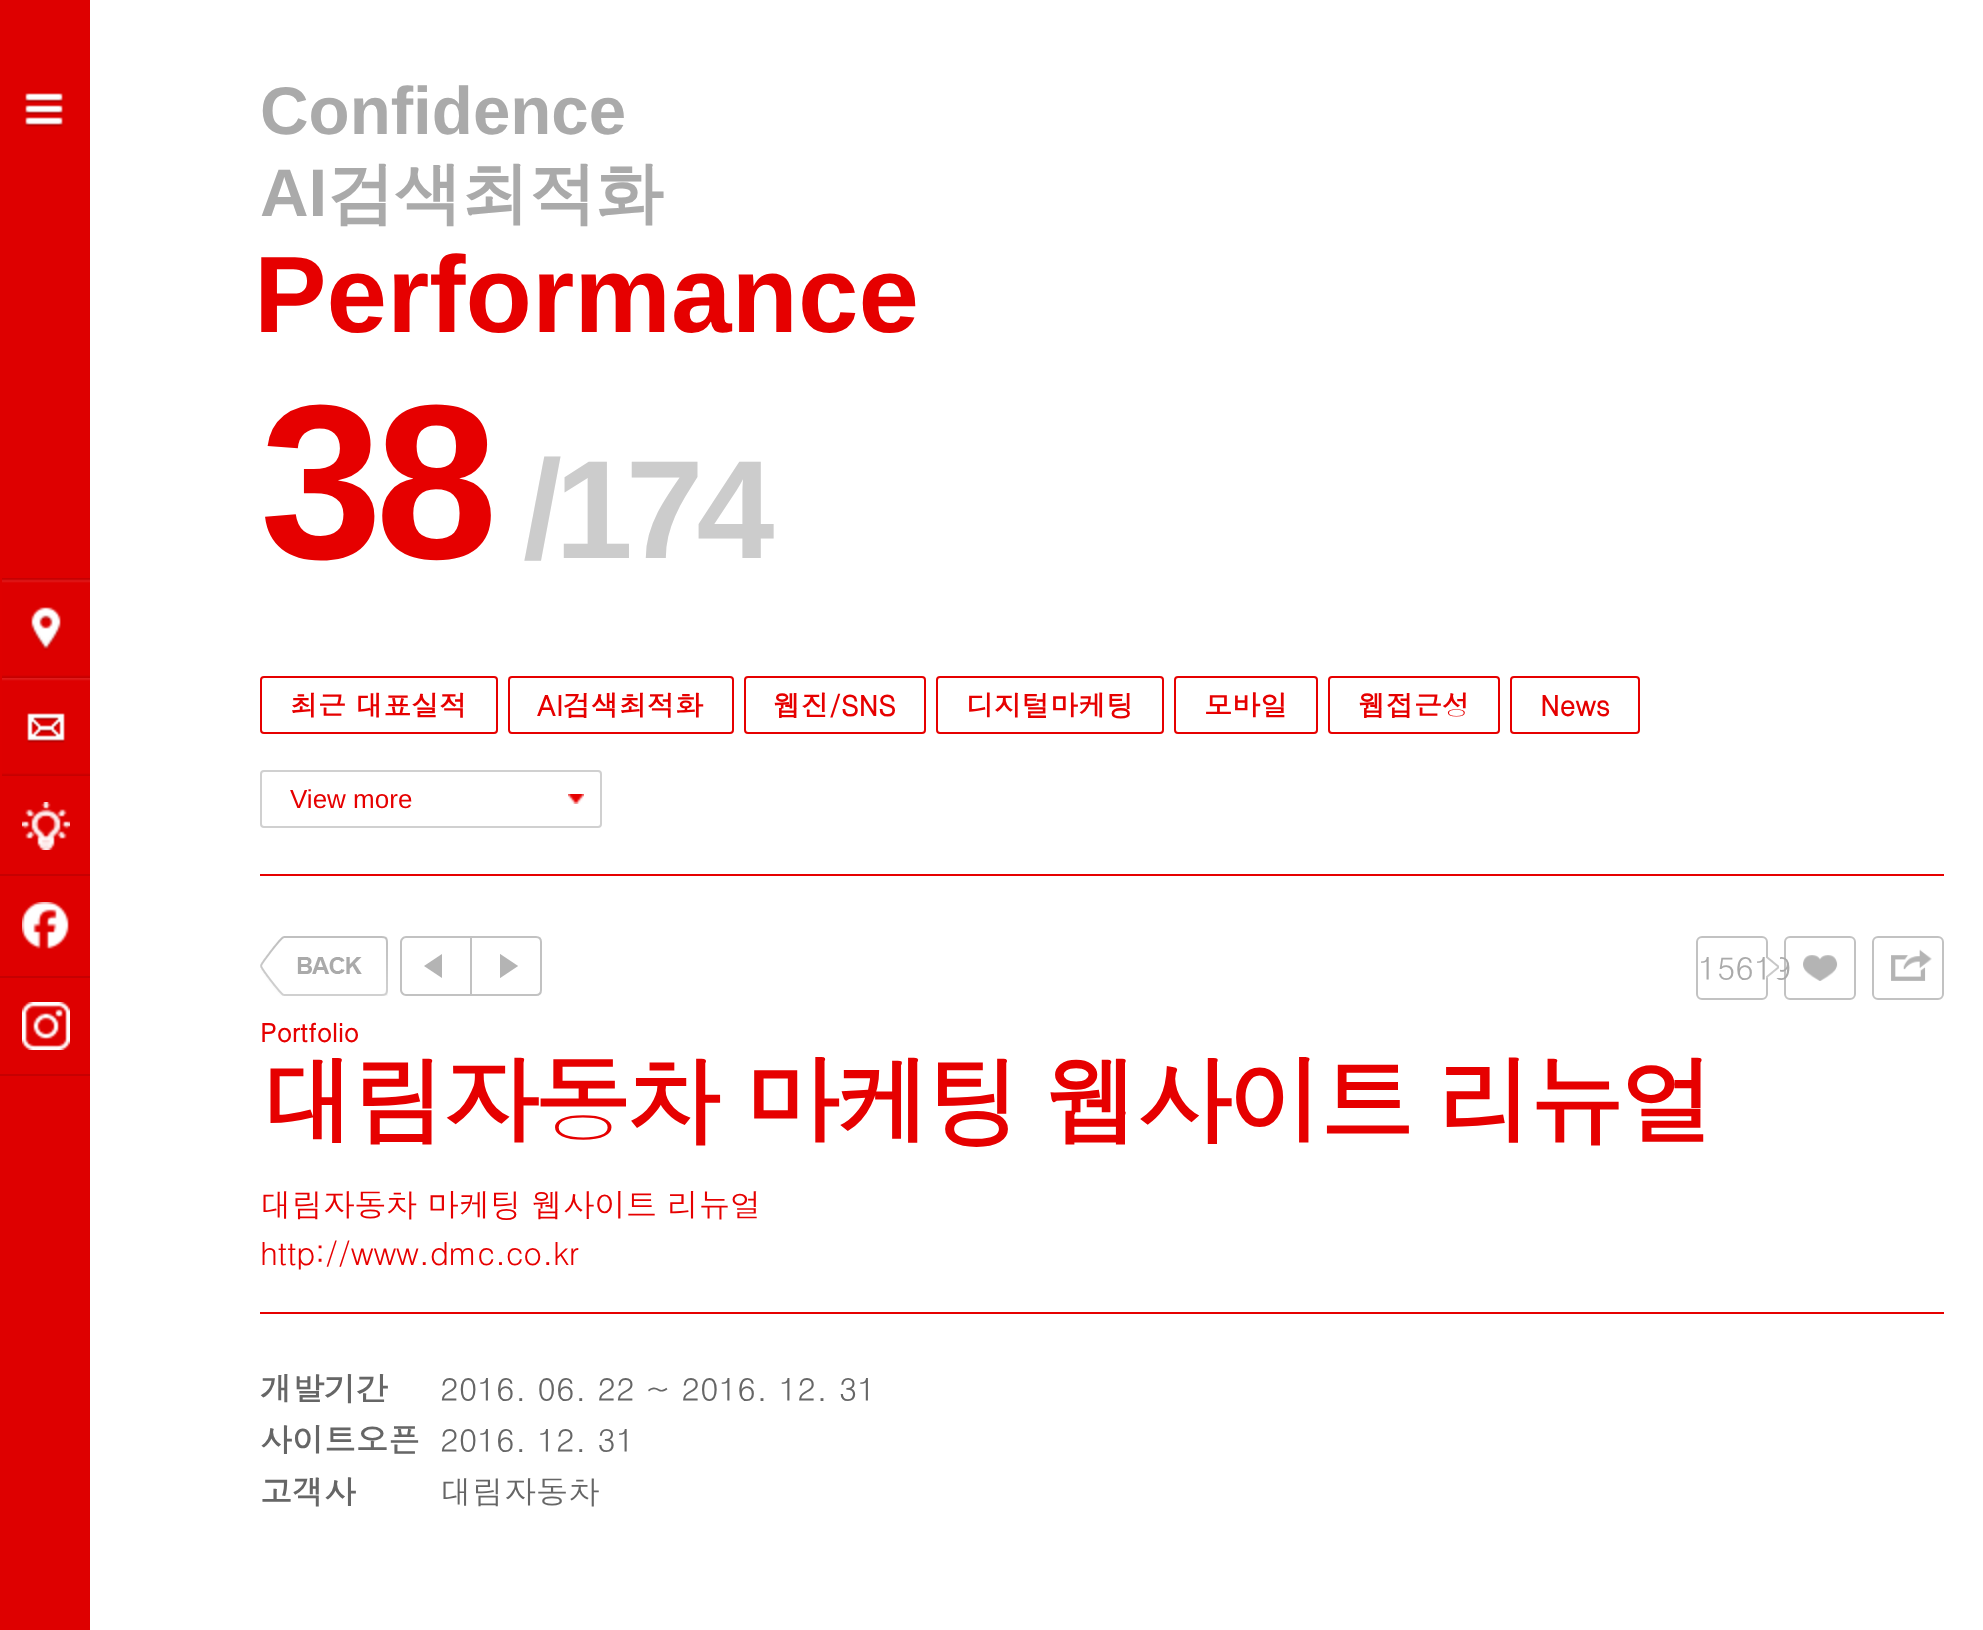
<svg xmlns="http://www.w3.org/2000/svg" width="1983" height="1630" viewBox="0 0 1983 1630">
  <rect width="100%" height="100%" fill="#ffffff"/>
  <rect x="0" y="0" width="90" height="1630" fill="#de0000"/>
  <image x="25" y="93" width="38" height="34" href="img1.png"/>
  <image x="2" y="578" width="88" height="3" href="img2.png"/>
  <image x="2" y="581" width="88" height="97" href="img3.png"/>
  <image x="2" y="678" width="88" height="98" href="img4.png"/>
  <image x="22" y="802" width="48" height="48" href="img5.png"/>
  <image x="22" y="902" width="47" height="47" href="img6.png"/>
  <rect x="0" y="874" width="90" height="2" fill="#c60001"/>
  <image x="22" y="1002" width="48" height="48" href="img7.png"/>
  <rect x="0" y="976" width="90" height="2" fill="#c60001"/>
  <rect x="0" y="1074" width="90" height="2" fill="#c60001"/>
  <text x="260" y="134" font-family="Liberation Sans" font-size="67.25" font-weight="bold" fill="#aaaaaa">Confidence</text>
  <text x="260" y="216" font-family="Liberation Sans" font-size="67.25" font-weight="bold" fill="#aaaaaa">AI</text>
  <text x="327" y="216" font-family="WenQuanYi Zen Hei" font-size="67.25" font-weight="bold" fill="#aaaaaa">검색최적화</text>
  <text x="254" y="332" font-family="Liberation Sans" font-size="108.75" font-weight="bold" fill="#e60000">Performance</text>
  <text x="260" y="558" font-family="Liberation Sans" font-size="220" font-weight="bold" letter-spacing="-7" fill="#e60000">38</text>
  <text x="523" y="558" font-family="Liberation Sans" font-size="140" font-weight="bold" letter-spacing="-7" fill="#cccccc">/174</text>
  <rect x="261" y="677" width="236" height="56" rx="3" fill="none" stroke="#e60000" stroke-width="2"/>
  <text x="290" y="716" font-family="Dotum" font-size="28" font-weight="bold" fill="#e60000">최근 대표실적</text>
  <rect x="509" y="677" width="224" height="56" rx="3" fill="none" stroke="#e60000" stroke-width="2"/>
  <text x="537" y="716" font-family="Dotum" font-size="28" font-weight="bold" fill="#e60000">AI검색최적화</text>
  <rect x="745" y="677" width="180" height="56" rx="3" fill="none" stroke="#e60000" stroke-width="2"/>
  <text x="773" y="716" font-family="Dotum" font-size="28" font-weight="bold" fill="#e60000">웹진/SNS</text>
  <rect x="937" y="677" width="226" height="56" rx="3" fill="none" stroke="#e60000" stroke-width="2"/>
  <text x="966" y="716" font-family="Dotum" font-size="28" font-weight="bold" fill="#e60000">디지털마케팅</text>
  <rect x="1175" y="677" width="142" height="56" rx="3" fill="none" stroke="#e60000" stroke-width="2"/>
  <text x="1204" y="716" font-family="Dotum" font-size="28" font-weight="bold" fill="#e60000">모바일</text>
  <rect x="1329" y="677" width="170" height="56" rx="3" fill="none" stroke="#e60000" stroke-width="2"/>
  <text x="1358" y="716" font-family="Dotum" font-size="28" font-weight="bold" fill="#e60000">웹접근성</text>
  <rect x="1511" y="677" width="128" height="56" rx="3" fill="none" stroke="#e60000" stroke-width="2"/>
  <text x="1540" y="716" font-family="Dotum" font-size="28" font-weight="bold" fill="#e60000">News</text>
  <image x="568" y="794" width="16" height="10" href="img8.png"/>
  <rect x="261" y="771" width="340" height="56" rx="3" fill="none" stroke="#d0d0d0" stroke-width="2"/>
  <text x="290" y="808" font-family="Liberation Sans" font-size="26" fill="#e60000">View more</text>
  <rect x="260" y="874" width="1684" height="2" fill="#e60000"/>
  <image x="260" y="936" width="128" height="60" href="img9.png"/>
  <path d="M406 936H470V996H406C403 996 400 993 400 990V942C400 939 403 936 406 936ZM406 938H470V994H406C404 994 402 992 402 990V942C402 940 404 938 406 938Z" fill="#c2c2c2" fill-rule="evenodd"/>
  <image x="424" y="954" width="18" height="24" href="img10.png"/>
  <path d="M471 937H536C539 937 541 939 541 942V990C541 993 539 995 536 995H471Z" fill="none" stroke="#c2c2c2" stroke-width="2"/>
  <image x="500" y="954" width="18" height="24" href="img11.png"/>
  <rect x="1697" y="937" width="70" height="62" rx="5" fill="none" stroke="#c2c2c2" stroke-width="2"/>
  <rect x="1785" y="937" width="70" height="62" rx="5" fill="none" stroke="#c2c2c2" stroke-width="2"/>
  <text x="1698" y="980" font-family="Dotum" font-size="32" fill="#aaaaaa">15619</text>
  <image x="1766" y="957" width="14" height="21" href="img12.png"/>
  <image x="1803" y="955" width="35" height="26" href="img13.png"/>
  <rect x="1873" y="937" width="70" height="62" rx="5" fill="none" stroke="#c2c2c2" stroke-width="2"/>
  <image x="1891" y="949" width="41" height="32" href="img14.png"/>
  <text x="260" y="1042" font-family="Dotum" font-size="25.5" font-weight="bold" fill="#e60000">Portfolio</text>
  <text x="260" y="1138" font-family="Dotum" font-size="96" font-weight="bold" letter-spacing="-4.75" fill="#e60000">대림자동차 마케팅 웹사이트 리뉴얼</text>
  <rect x="260" y="1312" width="1684" height="2" fill="#e60000"/>
  <text x="260" y="1217" font-family="Dotum" font-size="32" letter-spacing="-0.6" fill="#e60000">대림자동차 마케팅 웹사이트 리뉴얼</text>
  <text x="260" y="1265" font-family="Dotum" font-size="32" letter-spacing="-0.6" fill="#e60000">http://www.dmc.co.kr</text>
  <text x="260" y="1401" font-family="Dotum" font-size="32" font-weight="bold" fill="#666666">개발기간</text>
  <text x="440" y="1401" font-family="Dotum" font-size="32" fill="#666666">2016. 06. 22 ~ 2016. 12. 31</text>
  <text x="260" y="1452" font-family="Dotum" font-size="32" font-weight="bold" fill="#666666">사이트오픈</text>
  <text x="440" y="1452" font-family="Dotum" font-size="32" fill="#666666">2016. 12. 31</text>
  <text x="260" y="1504" font-family="Dotum" font-size="32" font-weight="bold" fill="#666666">고객사</text>
  <text x="440" y="1504" font-family="Dotum" font-size="32" fill="#666666">대림자동차</text>
</svg>
